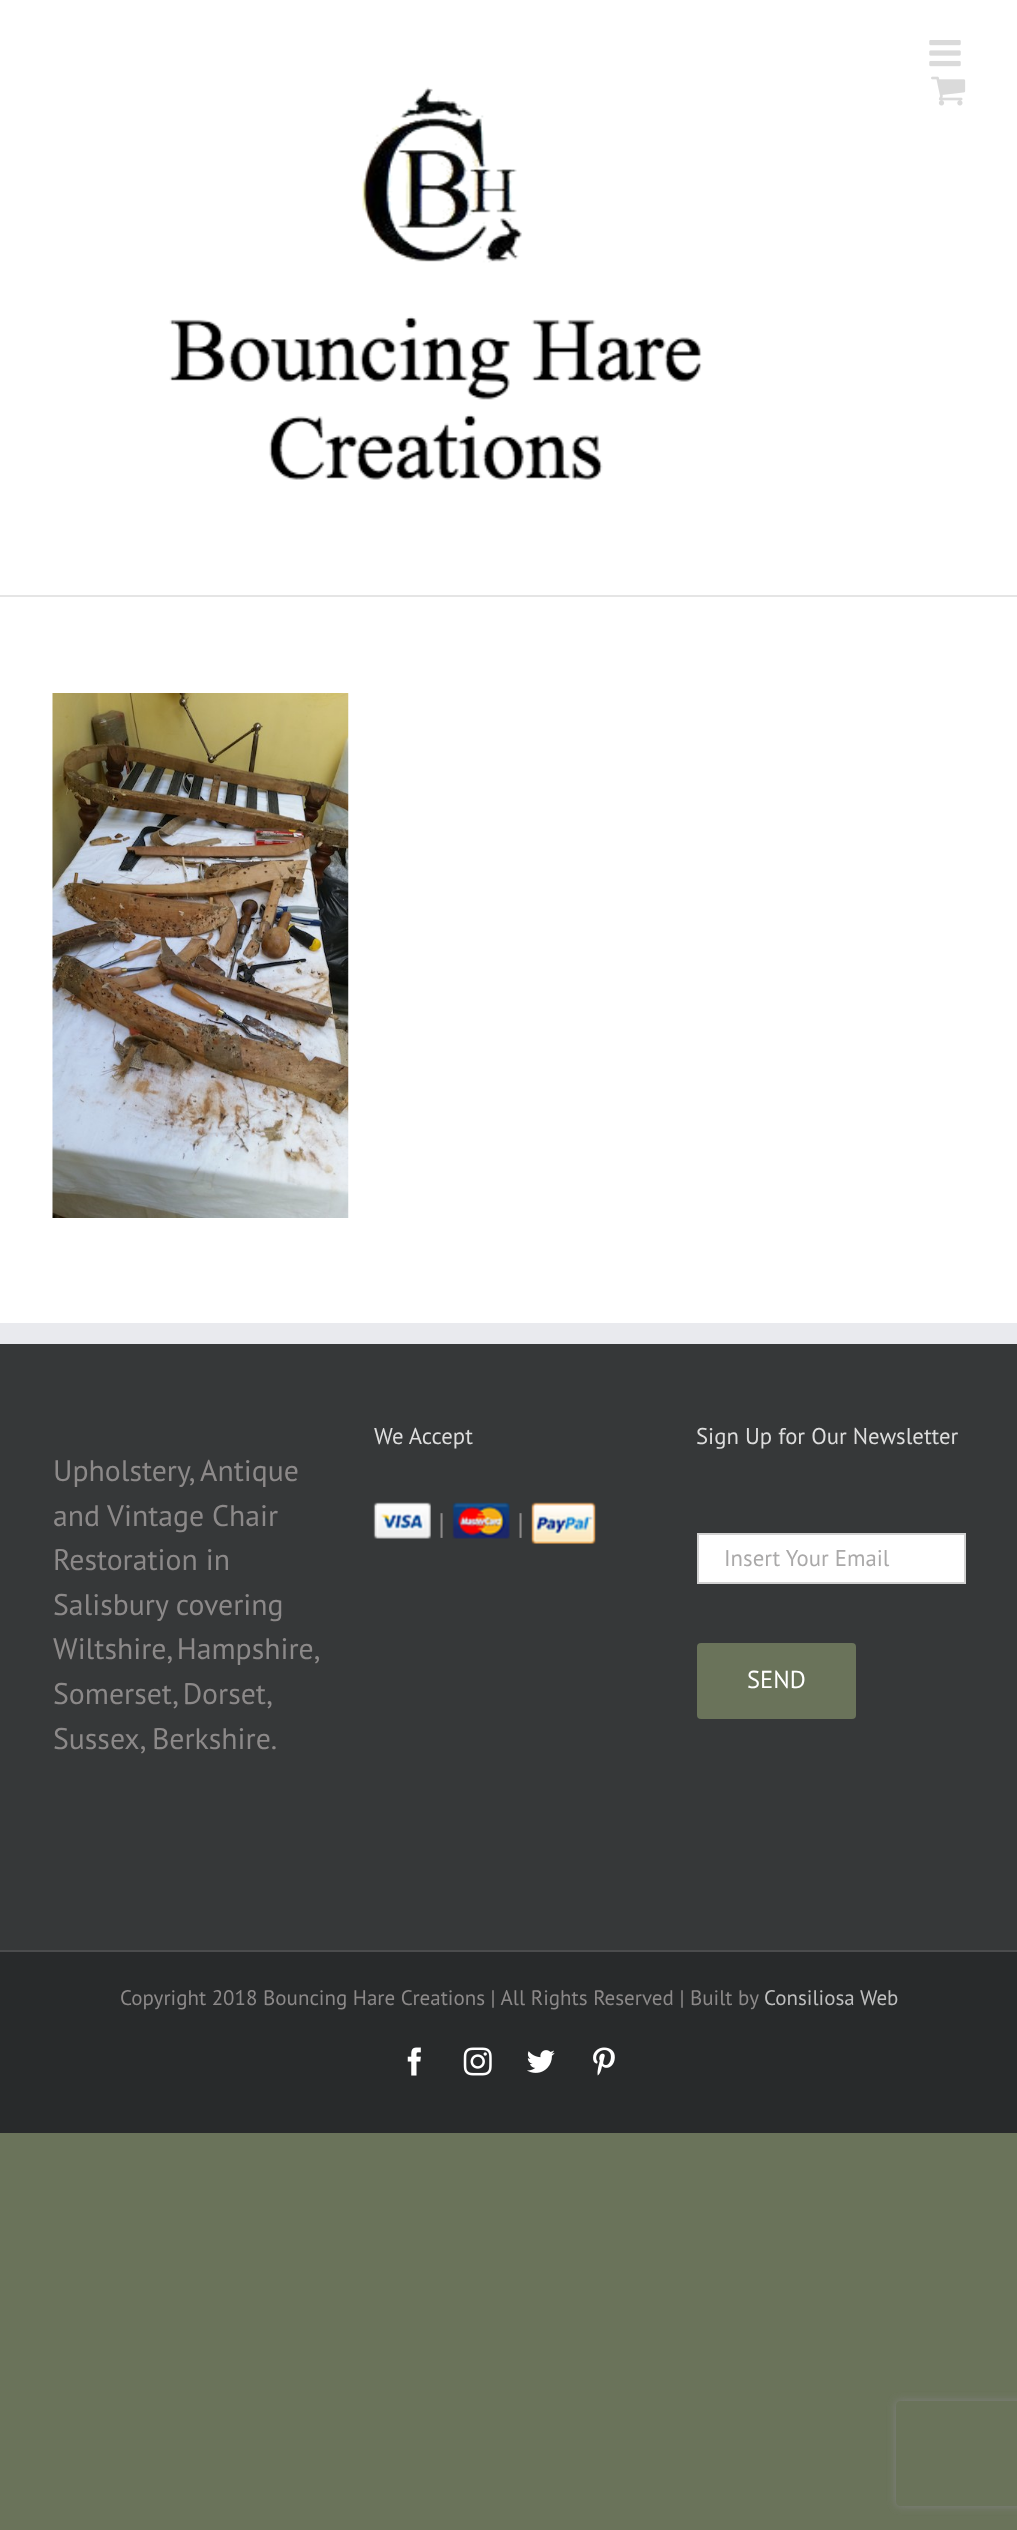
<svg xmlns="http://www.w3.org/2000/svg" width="1017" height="2530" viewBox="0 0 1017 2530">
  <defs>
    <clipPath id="clip1"><path d="M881 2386H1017V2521H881ZM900 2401H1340C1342 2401 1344 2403 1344 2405V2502C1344 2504 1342 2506 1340 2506H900C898 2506 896 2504 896 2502V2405C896 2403 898 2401 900 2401Z" clip-rule="evenodd"/></clipPath>
    <filter id="blur1" x="-50%" y="-200%" width="200%" height="500%"><feGaussianBlur stdDeviation="4.5"/></filter>
  </defs>
  <rect width="100%" height="100%" fill="#6a735a"/>
  <rect x="0" y="0" width="1017" height="595" fill="#ffffff"/>
  <rect x="0" y="595" width="1017" height="2" fill="#e5e5e5"/>
  <image x="929" y="40" width="32" height="27" href="img1.png"/>
  <image x="931" y="76" width="35" height="30" href="img2.png"/>
  <image x="169" y="87" width="533" height="393" href="img3.png"/>
  <rect x="0" y="597" width="1017" height="726" fill="#ffffff"/>
  <image x="52" y="693" width="297" height="525" href="img4.png"/>
  <rect x="0" y="1344" width="1017" height="606" fill="#363839"/>
  <rect x="0" y="1323" width="1017" height="21" fill="#e9eaee"/>
  <text x="53" y="1481" font-family="PT Sans" font-size="29.75" fill="#8c8989">Upholstery, Antique</text>
  <text x="53" y="1526" font-family="PT Sans" font-size="29.75" fill="#8c8989">and Vintage Chair</text>
  <text x="53" y="1570" font-family="PT Sans" font-size="29.75" fill="#8c8989">Restoration in</text>
  <text x="53" y="1615" font-family="PT Sans" font-size="29.75" fill="#8c8989">Salisbury covering</text>
  <text x="53" y="1659" word-spacing="-2" font-family="PT Sans" font-size="29.75" fill="#8c8989">Wiltshire, Hampshire,</text>
  <text x="53" y="1704" word-spacing="-2" font-family="PT Sans" font-size="29.75" fill="#8c8989">Somerset, Dorset,</text>
  <text x="53" y="1749" font-family="PT Sans" font-size="29.75" fill="#8c8989">Sussex, Berkshire.</text>
  <text x="374" y="1444" font-family="PT Sans" font-size="22.75" fill="#dddddd">We Accept</text>
  <image x="373" y="1502" width="58" height="37" href="img5.png"/>
  <text x="438" y="1534" font-family="PT Sans" font-size="29.75" fill="#8c8989">|</text>
  <image x="452" y="1502" width="58" height="37" href="img6.png"/>
  <text x="517" y="1534" font-family="PT Sans" font-size="29.75" fill="#8c8989">|</text>
  <image x="531" y="1502" width="65" height="42" href="img7.png"/>
  <text x="696" y="1444" font-family="PT Sans" font-size="22.75" fill="#dddddd">Sign Up for Our Newsletter</text>
  <rect x="698" y="1534" width="267" height="49" fill="#ffffff" stroke="#d2d2d2" stroke-width="2"/>
  <text x="724" y="1566" font-family="PT Sans" font-size="22.75" fill="#aaa9a9">Insert Your Email</text>
  <rect x="697" y="1643" width="159" height="76" rx="4" fill="#6a735a"/>
  <text x="747" y="1688" font-family="PT Sans" font-size="24.5" fill="#ffffff">SEND</text>
  <rect x="0" y="1952" width="1017" height="181" fill="#282a2b"/>
  <rect x="0" y="1950" width="1017" height="2" fill="#4b4c4d"/>
  <text x="120" y="2005" font-family="PT Sans" font-size="21" fill="#8c8989">Copyright 2018 Bouncing Hare Creations | All Rights Reserved | Built by</text>
  <text x="764" y="2005" font-family="PT Sans" font-size="21" fill="#bfbfbf">Consiliosa Web</text>
  <image x="407" y="2047" width="14" height="29" href="img8.png"/>
  <image x="463" y="2047" width="29" height="29" href="img9.png"/>
  <image x="527" y="2050" width="28" height="23" href="img10.png"/>
  <image x="593" y="2047" width="22" height="29" href="img11.png"/>
  <g clip-path="url(#clip1)">
    <rect x="896" y="2401" width="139" height="105" rx="4" fill="#808080" filter="url(#blur1)"/>
  </g>
</svg>
